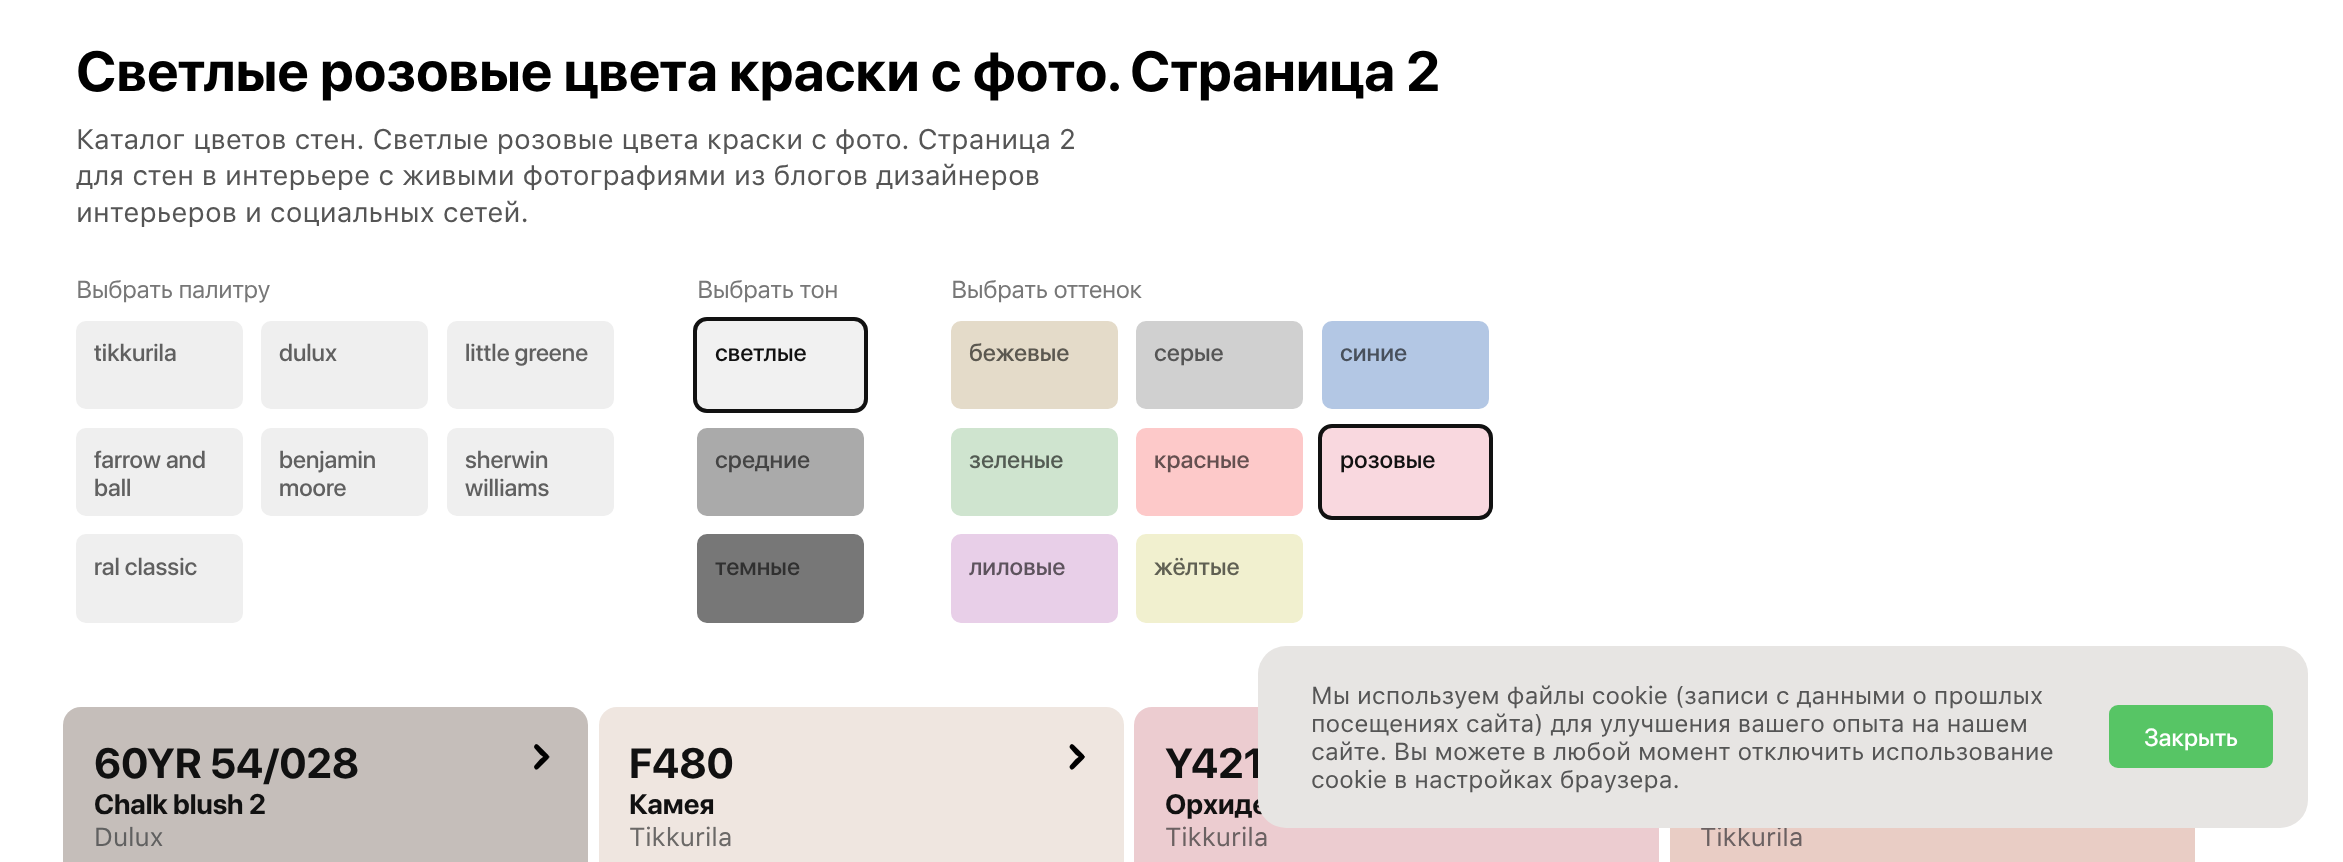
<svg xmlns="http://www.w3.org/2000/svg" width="2343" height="862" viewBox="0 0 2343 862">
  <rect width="100%" height="100%" fill="#ffffff"/>
  <text x="76" y="91" font-family="SF Pro Display" font-size="56" font-weight="bold" fill="#000000">Светлые розовые цвета краски с фото. Страница 2</text>
  <text x="76" y="149" font-family="SF Pro Text" font-size="28" fill="#555555">Каталог цветов стен. Светлые розовые цвета краски с фото. Страница 2</text>
  <text x="76" y="185" font-family="SF Pro Text" font-size="28" fill="#555555">для стен в интерьере с живыми фотографиями из блогов дизайнеров</text>
  <text x="76" y="222" font-family="SF Pro Text" font-size="28" fill="#555555">интерьеров и социальных сетей.</text>
  <text x="76" y="298" font-family="SF Pro Text" font-size="24.5" letter-spacing="-0.9" fill="#777777">Выбрать палитру</text>
  <rect x="74" y="319" width="171" height="92" rx="12" fill="#efefef" stroke="#ffffff" stroke-width="4"/>
  <text x="94" y="361" font-family="SF Pro Display" font-size="24.5" font-weight="500" fill="#606060">tikkurila</text>
  <rect x="259" y="319" width="171" height="92" rx="12" fill="#efefef" stroke="#ffffff" stroke-width="4"/>
  <text x="279" y="361" font-family="SF Pro Display" font-size="24.5" font-weight="500" fill="#606060">dulux</text>
  <rect x="445" y="319" width="171" height="92" rx="12" fill="#efefef" stroke="#ffffff" stroke-width="4"/>
  <text x="465" y="361" font-family="SF Pro Display" font-size="24.5" font-weight="500" fill="#606060">little greene</text>
  <rect x="74" y="426" width="171" height="92" rx="12" fill="#efefef" stroke="#ffffff" stroke-width="4"/>
  <text x="94" y="468" font-family="SF Pro Display" font-size="24.5" font-weight="500" fill="#606060">farrow and</text>
  <text x="94" y="496" font-family="SF Pro Display" font-size="24.5" font-weight="500" fill="#606060">ball</text>
  <rect x="259" y="426" width="171" height="92" rx="12" fill="#efefef" stroke="#ffffff" stroke-width="4"/>
  <text x="279" y="468" font-family="SF Pro Display" font-size="24.5" font-weight="500" fill="#606060">benjamin</text>
  <text x="279" y="496" font-family="SF Pro Display" font-size="24.5" font-weight="500" fill="#606060">moore</text>
  <rect x="445" y="426" width="171" height="92" rx="12" fill="#efefef" stroke="#ffffff" stroke-width="4"/>
  <text x="465" y="468" font-family="SF Pro Display" font-size="24.5" font-weight="500" fill="#606060">sherwin</text>
  <text x="465" y="496" font-family="SF Pro Display" font-size="24.5" font-weight="500" fill="#606060">williams</text>
  <rect x="74" y="532" width="171" height="93" rx="12" fill="#efefef" stroke="#ffffff" stroke-width="4"/>
  <text x="94" y="575" font-family="SF Pro Display" font-size="24.5" font-weight="500" fill="#606060">ral classic</text>
  <text x="697" y="298" font-family="SF Pro Text" font-size="24.5" letter-spacing="-0.9" fill="#777777">Выбрать тон</text>
  <rect x="695" y="319" width="171" height="92" rx="12" fill="#f1f1f1" stroke="#111111" stroke-width="4"/>
  <text x="715" y="361" font-family="SF Pro Display" font-size="24.5" font-weight="500" fill="#111111">светлые</text>
  <rect x="695" y="426" width="171" height="92" rx="12" fill="#aaaaaa" stroke="#ffffff" stroke-width="4"/>
  <text x="715" y="468" font-family="SF Pro Display" font-size="24.5" font-weight="500" fill="#444444">средние</text>
  <rect x="695" y="532" width="171" height="93" rx="12" fill="#777777" stroke="#ffffff" stroke-width="4"/>
  <text x="715" y="575" font-family="SF Pro Display" font-size="24.5" font-weight="500" fill="#303030">темные</text>
  <text x="951" y="298" font-family="SF Pro Text" font-size="24.5" letter-spacing="-0.9" fill="#777777">Выбрать оттенок</text>
  <rect x="949" y="319" width="171" height="92" rx="12" fill="#e4dbc9" stroke="#ffffff" stroke-width="4"/>
  <text x="969" y="361" font-family="SF Pro Display" font-size="24.5" font-weight="500" fill="#5b5850">бежевые</text>
  <rect x="1134" y="319" width="171" height="92" rx="12" fill="#d0d0d0" stroke="#ffffff" stroke-width="4"/>
  <text x="1154" y="361" font-family="SF Pro Display" font-size="24.5" font-weight="500" fill="#555555">серые</text>
  <rect x="1320" y="319" width="171" height="92" rx="12" fill="#b3c7e4" stroke="#ffffff" stroke-width="4"/>
  <text x="1340" y="361" font-family="SF Pro Display" font-size="24.5" font-weight="500" fill="#48505b">синие</text>
  <rect x="949" y="426" width="171" height="92" rx="12" fill="#cfe4cf" stroke="#ffffff" stroke-width="4"/>
  <text x="969" y="468" font-family="SF Pro Display" font-size="24.5" font-weight="500" fill="#535b53">зеленые</text>
  <rect x="1134" y="426" width="171" height="92" rx="12" fill="#fdc9c9" stroke="#ffffff" stroke-width="4"/>
  <text x="1154" y="468" font-family="SF Pro Display" font-size="24.5" font-weight="500" fill="#655050">красные</text>
  <rect x="1320" y="426" width="171" height="92" rx="12" fill="#f9d8df" stroke="#111111" stroke-width="4"/>
  <text x="1340" y="468" font-family="SF Pro Display" font-size="24.5" font-weight="500" fill="#111111">розовые</text>
  <rect x="949" y="532" width="171" height="93" rx="12" fill="#e8cfe8" stroke="#ffffff" stroke-width="4"/>
  <text x="969" y="575" font-family="SF Pro Display" font-size="24.5" font-weight="500" fill="#5d535d">лиловые</text>
  <rect x="1134" y="532" width="171" height="93" rx="12" fill="#f1f0cf" stroke="#ffffff" stroke-width="4"/>
  <text x="1154" y="575" font-family="SF Pro Display" font-size="24.5" font-weight="500" fill="#606053">жёлтые</text>
  <rect x="63" y="707" width="525" height="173" rx="18" fill="#c5beba"/>
  <text x="94" y="778" font-family="SF Pro Display" font-size="42" font-weight="bold" fill="#111111">60YR 54/028</text>
  <text x="94" y="814" font-family="SF Pro Display" font-size="28" font-weight="bold" fill="#111111">Chalk blush 2</text>
  <text x="94" y="846" font-family="SF Pro Text" font-size="26" fill="#606060">Dulux</text>
  <image x="534" y="744" width="16" height="26" href="img1.png"/>
  <rect x="599" y="707" width="525" height="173" rx="18" fill="#efe6e0"/>
  <text x="629" y="778" font-family="SF Pro Display" font-size="42" font-weight="bold" fill="#111111">F480</text>
  <text x="629" y="814" font-family="SF Pro Display" font-size="28" font-weight="bold" fill="#111111">Камея</text>
  <text x="629" y="846" font-family="SF Pro Text" font-size="26" fill="#6b6967">Tikkurila</text>
  <image x="1069" y="744" width="16" height="26" href="img2.png"/>
  <rect x="1134" y="707" width="525" height="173" rx="18" fill="#ecccd0"/>
  <text x="1165" y="778" font-family="SF Pro Display" font-size="42" font-weight="bold" fill="#111111">Y421</text>
  <text x="1165" y="814" font-family="SF Pro Display" font-size="28" font-weight="bold" fill="#111111">Орхиде</text>
  <text x="1165" y="846" font-family="SF Pro Text" font-size="26" fill="#6b6162">Tikkurila</text>
  <rect x="1670" y="828" width="525" height="34" fill="#e9cdc5"/>
  <text x="1700" y="846" font-family="SF Pro Text" font-size="26" fill="#6b6162">Tikkurila</text>
  <rect x="1258" y="646" width="1050" height="182" rx="28" fill="#e7e5e3"/>
  <text x="1311" y="704" font-family="SF Pro Text" font-size="24.5" fill="#555555">Мы используем файлы cookie (записи с данными о прошлых</text>
  <text x="1311" y="732" font-family="SF Pro Text" font-size="24.5" fill="#555555">посещениях сайта) для улучшения вашего опыта на нашем</text>
  <text x="1311" y="760" font-family="SF Pro Text" font-size="24.5" fill="#555555">сайте. Вы можете в любой момент отключить использование</text>
  <text x="1311" y="788" font-family="SF Pro Text" font-size="24.5" fill="#555555">cookie в настройках браузера.</text>
  <rect x="2109" y="705" width="164" height="63" rx="9" fill="#57c565"/>
  <text x="2144" y="746" font-family="SF Pro Display" font-size="24.5" font-weight="500" fill="#ffffff">Закрыть</text>
</svg>
